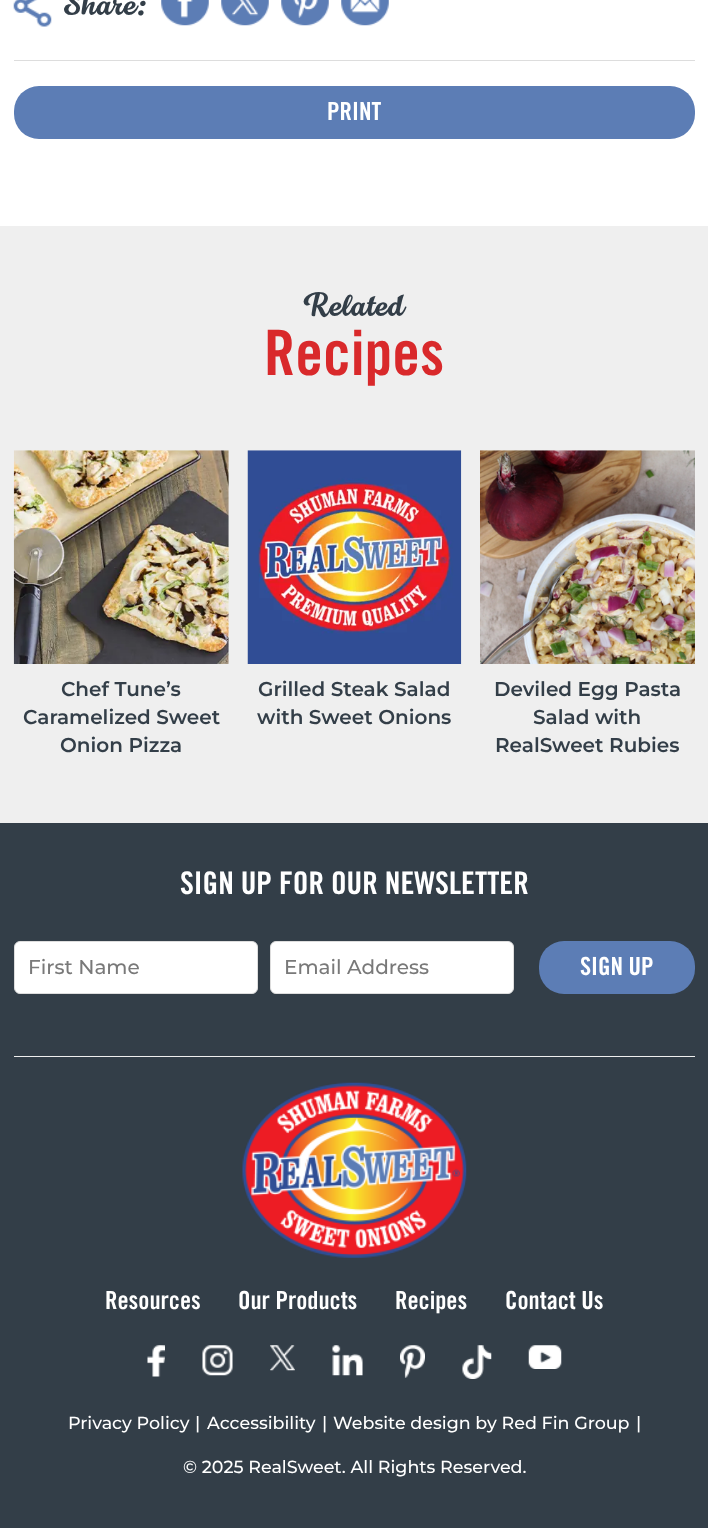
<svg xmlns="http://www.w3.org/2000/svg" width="708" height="1528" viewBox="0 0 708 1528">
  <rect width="100%" height="100%" fill="#ffffff"/>
  <image x="13" y="0" width="39" height="27" href="img1.png"/>
  <text x="64" y="15" font-family="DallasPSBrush" font-size="36" fill="#333e48">Share:</text>
  <image x="161" y="0" width="48" height="26" href="img2.png"/>
  <image x="221" y="0" width="48" height="26" href="img3.png"/>
  <image x="281" y="0" width="48" height="26" href="img4.png"/>
  <image x="341" y="0" width="48" height="26" href="img5.png"/>
  <rect x="14" y="60" width="681" height="1" fill="#dddddd"/>
  <rect x="14" y="86" width="681" height="53" rx="25" fill="#5c7db5"/>
  <text x="327" y="120" font-family="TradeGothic" font-size="25" font-weight="bold" fill="#ffffff">PRINT</text>
  <rect x="0" y="226" width="708" height="597" fill="#efefef"/>
  <text x="304" y="316" font-family="DallasPSBrush" font-size="36" fill="#333e48">Related</text>
  <text x="264" y="375" font-family="TradeGothic" font-size="62.5" font-weight="bold" fill="#d9292b">Recipes</text>
  <image x="13" y="450" width="216" height="214" href="img6.png"/>
  <text x="61" y="696" font-family="Montserrat" font-size="20" font-weight="600" fill="#333e48">Chef Tune’s</text>
  <text x="23" y="724" font-family="Montserrat" font-size="20" font-weight="600" fill="#333e48">Caramelized Sweet</text>
  <text x="60" y="752" font-family="Montserrat" font-size="20" font-weight="600" fill="#333e48">Onion Pizza</text>
  <image x="247" y="450" width="215" height="214" href="img7.png"/>
  <text x="258" y="696" font-family="Montserrat" font-size="20" font-weight="600" fill="#333e48">Grilled Steak Salad</text>
  <text x="257" y="724" font-family="Montserrat" font-size="20" font-weight="600" fill="#333e48">with Sweet Onions</text>
  <image x="480" y="450" width="215" height="214" href="img8.png"/>
  <text x="494" y="696" font-family="Montserrat" font-size="20" font-weight="600" fill="#333e48">Deviled Egg Pasta</text>
  <text x="533" y="724" font-family="Montserrat" font-size="20" font-weight="600" fill="#333e48">Salad with</text>
  <text x="495" y="752" font-family="Montserrat" font-size="20" font-weight="600" fill="#333e48">RealSweet Rubies</text>
  <rect x="0" y="823" width="708" height="705" fill="#333e48"/>
  <rect x="14" y="1056" width="681" height="1" fill="#efefef"/>
  <text x="180" y="894" font-family="TradeGothic" font-size="31.25" font-weight="bold" fill="#ffffff">SIGN UP FOR OUR NEWSLETTER</text>
  <rect x="14.5" y="941.5" width="243" height="52" rx="5.5" fill="#ffffff" stroke="#dddddd"/>
  <text x="28" y="974" font-family="Montserrat" font-size="20" font-weight="500" fill="#797979">First Name</text>
  <rect x="270.5" y="941.5" width="243" height="52" rx="5.5" fill="#ffffff" stroke="#dddddd"/>
  <text x="284" y="974" font-family="Montserrat" font-size="20" font-weight="500" fill="#797979">Email Address</text>
  <rect x="539" y="941" width="156" height="53" rx="25" fill="#5c7db5"/>
  <text x="580" y="975" font-family="TradeGothic" font-size="25" font-weight="bold" fill="#ffffff">SIGN UP</text>
  <image x="242" y="1082" width="225" height="176" href="img9.png"/>
  <text x="105" y="1309" font-family="TradeGothic" font-size="25" font-weight="bold" fill="#ffffff">Resources</text>
  <text x="238" y="1309" font-family="TradeGothic" font-size="25" font-weight="bold" fill="#ffffff">Our Products</text>
  <text x="395" y="1309" font-family="TradeGothic" font-size="25" font-weight="bold" fill="#ffffff">Recipes</text>
  <text x="505" y="1309" font-family="TradeGothic" font-size="25" font-weight="bold" fill="#ffffff">Contact Us</text>
  <image x="147" y="1345" width="18" height="32" href="img10.png"/>
  <image x="202" y="1345" width="31" height="31" href="img11.png"/>
  <image x="270" y="1345" width="25" height="26" href="img12.png"/>
  <image x="332" y="1345" width="31" height="31" href="img13.png"/>
  <image x="400" y="1345" width="25" height="33" href="img14.png"/>
  <image x="462" y="1345" width="30" height="34" href="img15.png"/>
  <image x="528" y="1345" width="34" height="24" href="img16.png"/>
  <text x="68" y="1429" font-family="Montserrat" font-size="17.5" font-weight="500" fill="#ffffff">Privacy Policy</text>
  <text x="195" y="1429" font-family="Montserrat" font-size="17.5" font-weight="500" fill="#ffffff">|</text>
  <text x="207" y="1429" font-family="Montserrat" font-size="17.5" font-weight="500" fill="#ffffff">Accessibility</text>
  <text x="322" y="1429" font-family="Montserrat" font-size="17.5" font-weight="500" fill="#ffffff">|</text>
  <text x="333" y="1429" font-family="Montserrat" font-size="17.5" font-weight="500" fill="#ffffff">Website design by Red Fin Group</text>
  <text x="636" y="1429" font-family="Montserrat" font-size="17.5" font-weight="500" fill="#ffffff">|</text>
  <text x="183" y="1473" font-family="Montserrat" font-size="17.5" font-weight="500" fill="#ffffff">© 2025 RealSweet. All Rights Reserved.</text>
</svg>
